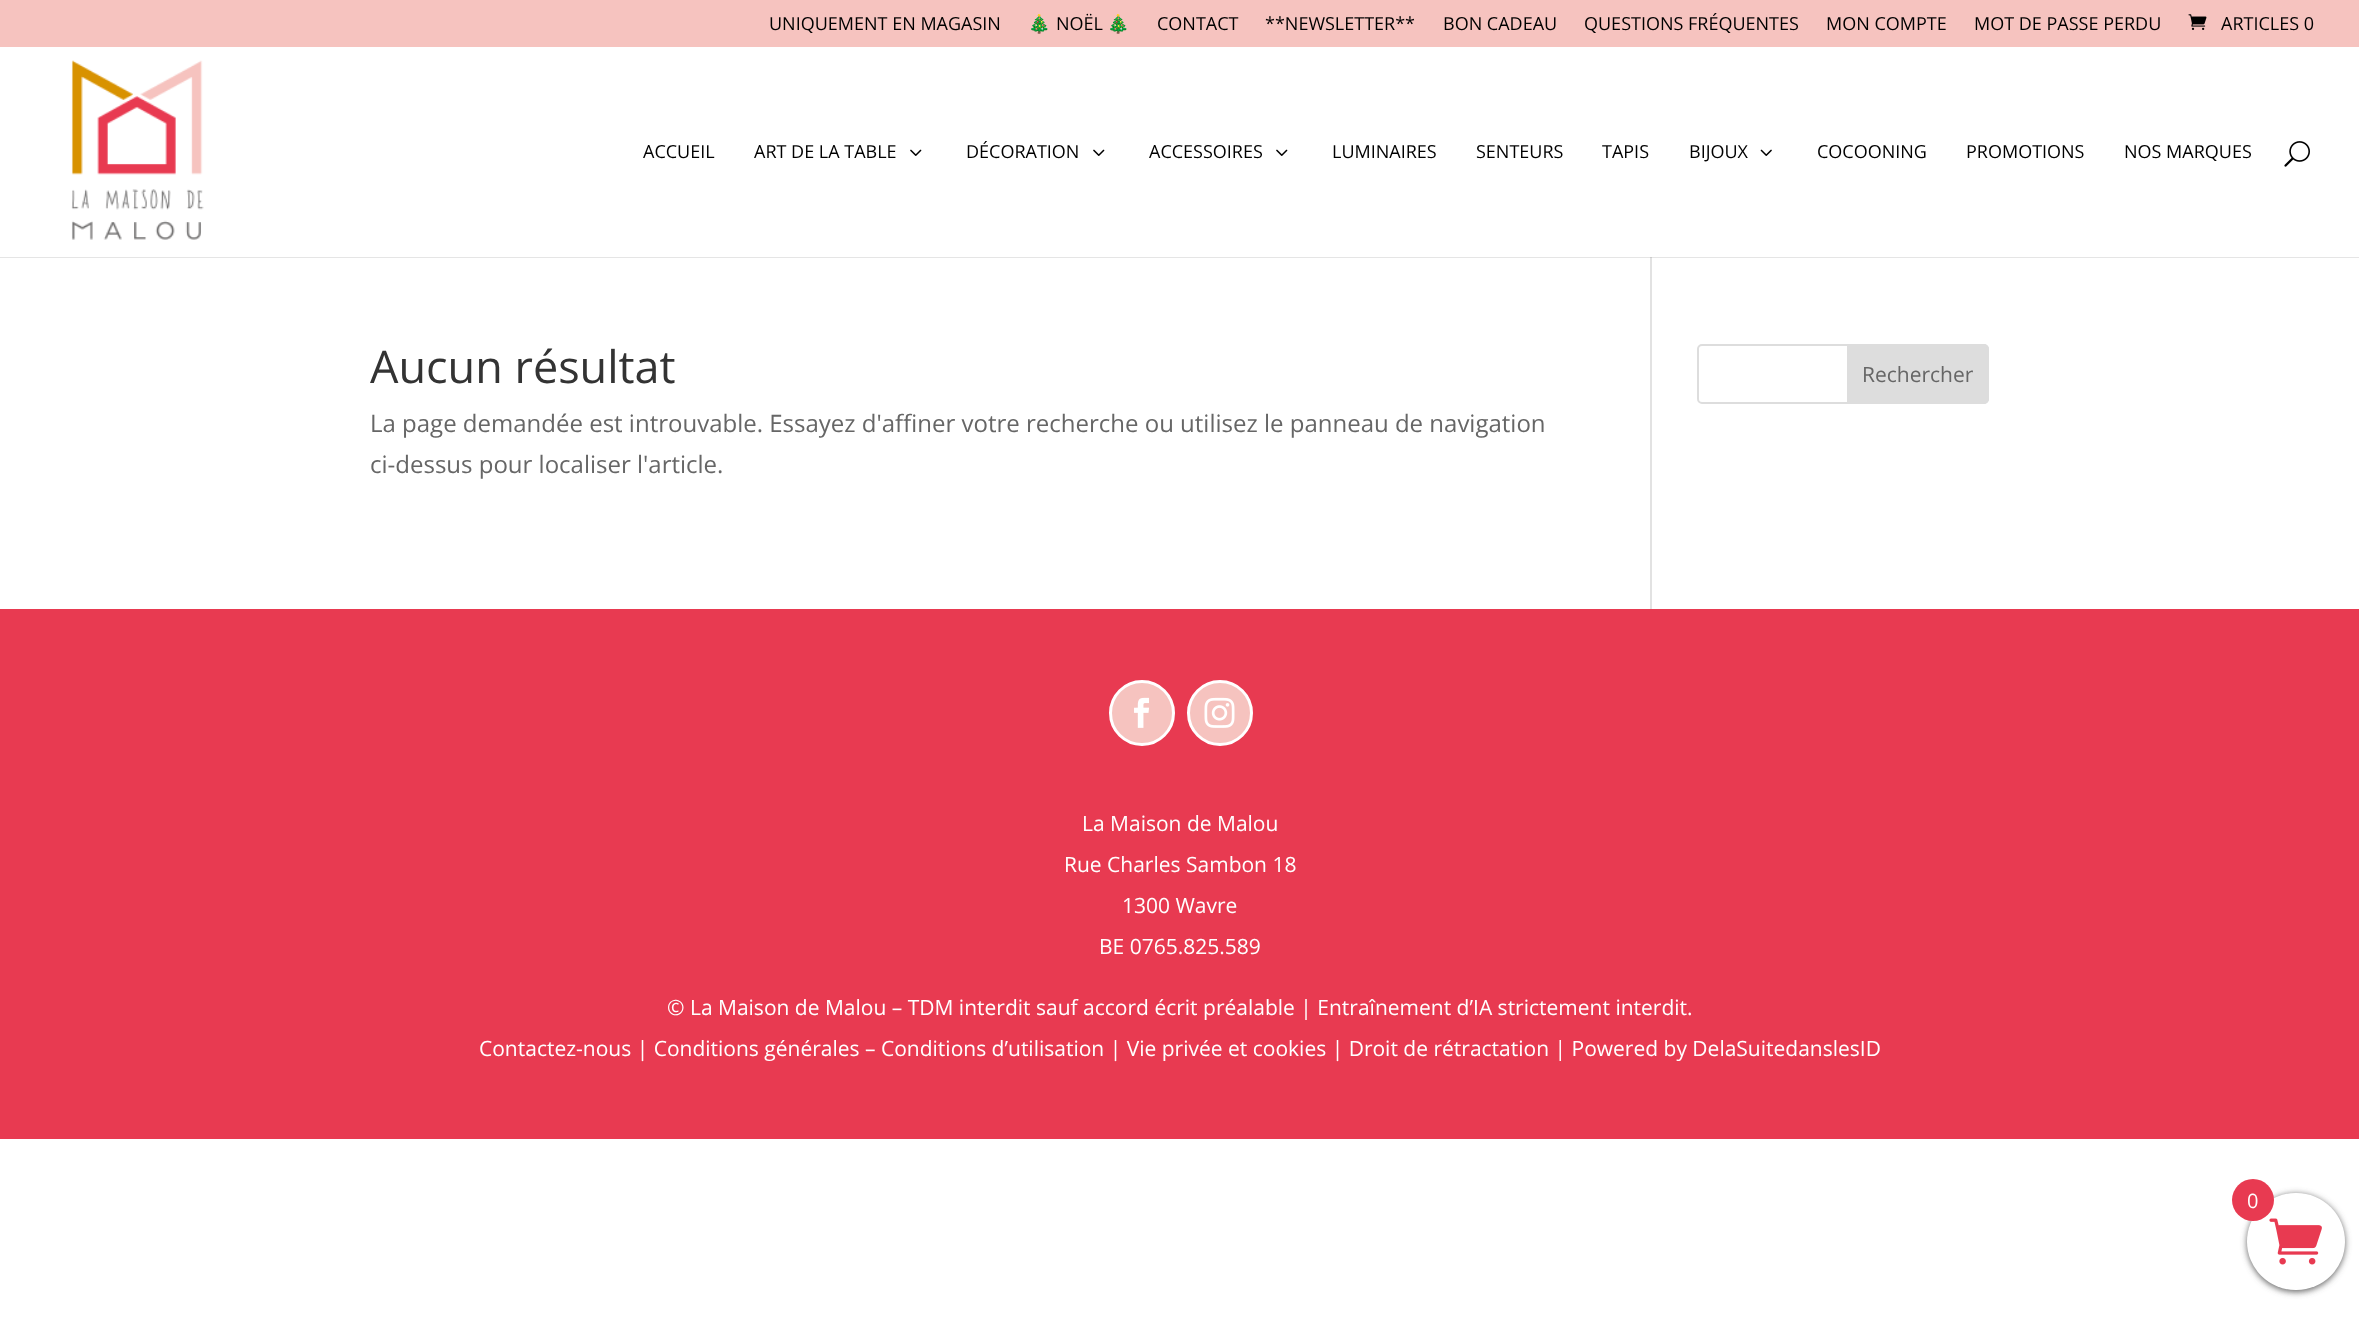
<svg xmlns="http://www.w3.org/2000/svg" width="2359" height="1323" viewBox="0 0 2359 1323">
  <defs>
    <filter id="blur1" x="-50%" y="-200%" width="200%" height="500%"><feGaussianBlur stdDeviation="3"/></filter>
  </defs>
  <rect width="100%" height="100%" fill="#ffffff"/>
  <rect x="0" y="0" width="2359" height="47" fill="#f6c3bf"/>
  <text x="769" y="30" font-family="Open Sans" font-size="18" fill="#000000">UNIQUEMENT EN MAGASIN</text>
  <text x="1028" y="30" font-family="Noto Color Emoji" font-size="18" fill="#000000">🎄</text>
  <text x="1056" y="30" font-family="Open Sans" font-size="18" fill="#000000">NOËL</text>
  <text x="1107" y="30" font-family="Noto Color Emoji" font-size="18" fill="#000000">🎄</text>
  <text x="1157" y="30" font-family="Open Sans" font-size="18" fill="#000000">CONTACT</text>
  <text x="1265" y="30" font-family="Open Sans" font-size="18" fill="#000000">**NEWSLETTER**</text>
  <text x="1443" y="30" font-family="Open Sans" font-size="18" fill="#000000">BON CADEAU</text>
  <text x="1584" y="30" font-family="Open Sans" font-size="18" fill="#000000">QUESTIONS FRÉQUENTES</text>
  <text x="1826" y="30" font-family="Open Sans" font-size="18" fill="#000000">MON COMPTE</text>
  <text x="1974" y="30" font-family="Open Sans" font-size="18" fill="#000000">MOT DE PASSE PERDU</text>
  <image x="2188" y="14" width="19" height="16" href="img1.png"/>
  <text x="2221" y="30" font-family="Open Sans" font-size="18" fill="#000000">ARTICLES 0</text>
  <rect x="1650" y="257" width="2" height="352" fill="#e2e2e2"/>
  <path d="M0 256V258H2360V48V256Z" fill="#000000" fill-opacity="0.1"/>
  <rect x="0" y="256" width="2359" height="1" fill="#ffffff"/>
  <image x="71" y="60" width="133" height="180" href="img2.png"/>
  <text x="643" y="158" font-family="Open Sans" font-size="18" fill="#000000">ACCUEIL</text>
  <text x="754" y="158" font-family="Open Sans" font-size="18" fill="#000000">ART DE LA TABLE</text>
  <image x="910" y="149" width="12" height="7" href="img3.png"/>
  <text x="966" y="158" font-family="Open Sans" font-size="18" fill="#000000">DÉCORATION</text>
  <image x="1093" y="149" width="12" height="7" href="img3.png"/>
  <text x="1149" y="158" font-family="Open Sans" font-size="18" fill="#000000">ACCESSOIRES</text>
  <image x="1276" y="149" width="12" height="7" href="img3.png"/>
  <text x="1332" y="158" font-family="Open Sans" font-size="18" fill="#000000">LUMINAIRES</text>
  <text x="1476" y="158" font-family="Open Sans" font-size="18" fill="#000000">SENTEURS</text>
  <text x="1602" y="158" font-family="Open Sans" font-size="18" fill="#000000">TAPIS</text>
  <text x="1689" y="158" font-family="Open Sans" font-size="18" fill="#000000">BIJOUX</text>
  <image x="1760" y="149" width="12" height="7" href="img4.png"/>
  <text x="1817" y="158" font-family="Open Sans" font-size="18" fill="#000000">COCOONING</text>
  <text x="1966" y="158" font-family="Open Sans" font-size="18" fill="#000000">PROMOTIONS</text>
  <text x="2124" y="158" font-family="Open Sans" font-size="18" fill="#000000">NOS MARQUES</text>
  <image x="2284" y="141" width="26" height="26" href="img5.png"/>
  <text x="370" y="383" font-family="Open Sans" font-size="45" fill="#333333">Aucun résultat</text>
  <text x="370" y="432" font-family="Open Sans" font-size="24" fill="#666666">La page demandée est introuvable. Essayez d'affiner votre recherche ou utilisez le panneau de navigation</text>
  <text x="370" y="473" font-family="Open Sans" font-size="24" fill="#666666">ci-dessus pour localiser l'article.</text>
  <rect x="1698" y="345" width="290" height="58" rx="4" fill="none" stroke="#dddddd" stroke-width="2"/>
  <path d="M1848 345H1984C1986 345 1988 347 1988 349V399C1988 401 1986 403 1984 403H1848Z" fill="#dddddd" stroke="#dddddd" stroke-width="2"/>
  <text x="1862" y="382" font-family="Open Sans" font-size="21" fill="#666666">Rechercher</text>
  <rect x="0" y="609" width="2359" height="530" fill="#e83a51"/>
  <circle cx="1142" cy="713" r="31.5" fill="#f6c3bf" stroke="#ffffff" stroke-width="3"/>
  <image x="1134" y="697" width="15" height="31" href="img6.png"/>
  <circle cx="1220" cy="713" r="31.5" fill="#f6c3bf" stroke="#ffffff" stroke-width="3"/>
  <image x="1204" y="697" width="31" height="31" href="img7.png"/>
  <text x="1082" y="831" font-family="Open Sans" font-size="21" fill="#ffffff">La Maison de Malou</text>
  <text x="1064" y="872" font-family="Open Sans" font-size="21" fill="#ffffff">Rue Charles Sambon 18</text>
  <text x="1122" y="913" font-family="Open Sans" font-size="21" fill="#ffffff">1300 Wavre</text>
  <text x="1099" y="954" font-family="Open Sans" font-size="21" fill="#ffffff">BE 0765.825.589</text>
  <text x="667" y="1015" font-family="Open Sans" font-size="21" fill="#ffffff">© La Maison de Malou – TDM interdit sauf accord écrit préalable | Entraînement d’IA strictement interdit.</text>
  <text x="479" y="1056" font-family="Open Sans" font-size="21" fill="#ffffff">Contactez-nous | Conditions générales – Conditions d’utilisation | Vie privée et cookies | Droit de rétractation | Powered by DelaSuitedanslesID</text>
  <rect x="2247" y="1194" width="98" height="98" rx="49" fill="#666666" filter="url(#blur1)"/>
  <rect x="2247" y="1193" width="98" height="97" rx="48.5" fill="#ffffff"/>
  <image x="2269" y="1218" width="53" height="47" href="img8.png"/>
  <circle cx="2253" cy="1200" r="21" fill="#e83a51"/>
  <text x="2247" y="1208" font-family="Open Sans" font-size="20" fill="#ffffff">0</text>
</svg>
